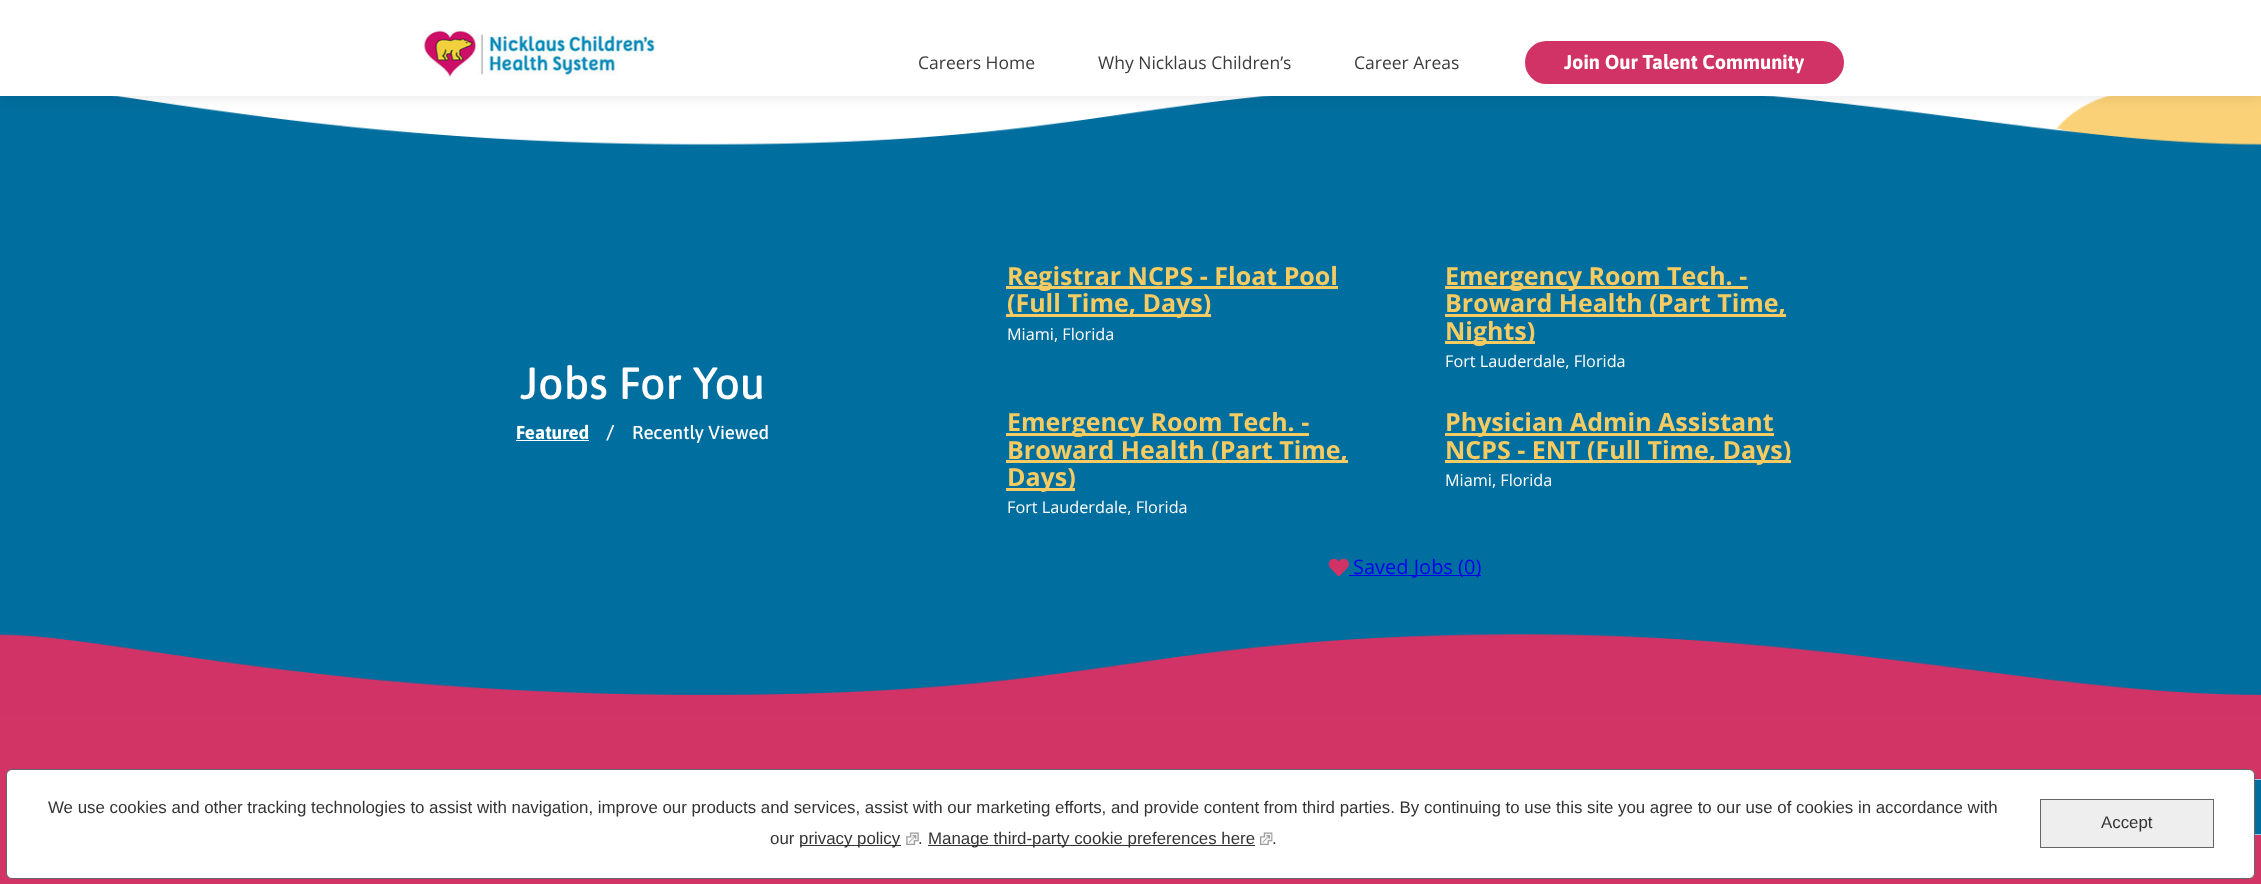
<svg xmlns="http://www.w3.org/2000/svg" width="2261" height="884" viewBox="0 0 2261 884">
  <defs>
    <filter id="blur1" x="-50%" y="-200%" width="200%" height="500%"><feGaussianBlur stdDeviation="6"/></filter>
    <linearGradient id="g1" gradientUnits="userSpaceOnUse" x1="1131" y1="65" x2="1131" y2="714"><stop offset="0" stop-color="#000000" stop-opacity="0"/><stop offset="0.5" stop-color="#d23366" stop-opacity="0"/><stop offset="0.5" stop-color="#d23366"/><stop offset="1" stop-color="#d23366"/></linearGradient>
  </defs>
  <rect width="100%" height="100%" fill="#ffffff"/>
  <image x="2056" y="96" width="205" height="49" href="img3.png"/>
  <image x="0" y="96" width="2261" height="104" href="img2.png"/>
  <rect x="0" y="3" width="2261" height="96" fill="#000000" fill-opacity="0.08" filter="url(#blur1)"/>
  <rect x="0" y="0" width="2261" height="96" fill="#ffffff"/>
  <image x="421" y="30" width="235" height="47" href="img1.png"/>
  <text x="918" y="69" font-family="Open Sans" font-size="17.5" fill="#3c3c3c">Careers Home</text>
  <text x="1098" y="69" font-family="Open Sans" font-size="17.5" fill="#3c3c3c">Why Nicklaus Children’s</text>
  <text x="1354" y="69" font-family="Open Sans" font-size="17.5" fill="#3c3c3c">Career Areas</text>
  <rect x="1526.5" y="42.5" width="316" height="40" rx="20" fill="#d23366" stroke="#d23366" stroke-width="3"/>
  <text x="1564" y="69" font-family="Asap" font-size="20" font-weight="bold" fill="#ffffff">Join Our Talent Community</text>
  <rect x="0" y="634" width="2261" height="80" fill="url(#g1)"/>
  <rect x="0" y="200" width="2261" height="379" fill="#006e9e"/>
  <text x="520" y="399" font-family="Asap" font-size="45" font-weight="500" fill="#ffffff">Jobs For You</text>
  <text x="516" y="439" font-family="Asap" font-size="18.75" font-weight="bold" fill="#ffffff">Featured</text>
  <rect x="516" y="440" width="73" height="1" fill="#ffffff"/>
  <text x="606" y="439" font-family="Asap" font-size="20" font-weight="500" fill="#ffffff">/</text>
  <text x="632" y="439" font-family="Asap" font-size="18.75" font-weight="500" fill="#ffffff">Recently Viewed</text>
  <rect x="1006" y="286" width="332" height="3" fill="#f6cc62"/>
  <text x="1007" y="285" font-family="Open Sans" font-size="25" font-weight="bold" fill="#f6cc62">Registrar NCPS - Float Pool</text>
  <rect x="1006" y="314" width="205" height="3" fill="#f6cc62"/>
  <text x="1007" y="312" font-family="Open Sans" font-size="25" font-weight="bold" fill="#f6cc62">(Full Time, Days)</text>
  <text x="1007" y="340" font-family="Open Sans" font-size="16.25" fill="#ffffff">Miami, Florida</text>
  <rect x="1445" y="286" width="303" height="3" fill="#f6cc62"/>
  <text x="1445" y="285" font-family="Open Sans" font-size="25" font-weight="bold" fill="#f6cc62">Emergency Room Tech. -</text>
  <rect x="1445" y="314" width="341" height="3" fill="#f6cc62"/>
  <text x="1445" y="312" font-family="Open Sans" font-size="25" font-weight="bold" fill="#f6cc62">Broward Health (Part Time,</text>
  <rect x="1445" y="341" width="90" height="3" fill="#f6cc62"/>
  <text x="1445" y="340" font-family="Open Sans" font-size="25" font-weight="bold" fill="#f6cc62">Nights)</text>
  <text x="1445" y="367" font-family="Open Sans" font-size="16.25" fill="#ffffff">Fort Lauderdale, Florida</text>
  <rect x="1006" y="433" width="303" height="3" fill="#f6cc62"/>
  <text x="1007" y="431" font-family="Open Sans" font-size="25" font-weight="bold" fill="#f6cc62">Emergency Room Tech. -</text>
  <rect x="1006" y="460" width="342" height="3" fill="#f6cc62"/>
  <text x="1007" y="459" font-family="Open Sans" font-size="25" font-weight="bold" fill="#f6cc62">Broward Health (Part Time,</text>
  <rect x="1006" y="488" width="69" height="3" fill="#f6cc62"/>
  <text x="1007" y="486" font-family="Open Sans" font-size="25" font-weight="bold" fill="#f6cc62">Days)</text>
  <text x="1007" y="513" font-family="Open Sans" font-size="16.25" fill="#ffffff">Fort Lauderdale, Florida</text>
  <rect x="1445" y="433" width="329" height="3" fill="#f6cc62"/>
  <text x="1445" y="431" font-family="Open Sans" font-size="25" font-weight="bold" fill="#f6cc62">Physician Admin Assistant</text>
  <rect x="1445" y="460" width="346" height="3" fill="#f6cc62"/>
  <text x="1445" y="459" font-family="Open Sans" font-size="25" font-weight="bold" fill="#f6cc62">NCPS - ENT (Full Time, Days)</text>
  <text x="1445" y="486" font-family="Open Sans" font-size="16.25" fill="#ffffff">Miami, Florida</text>
  <image x="1328" y="558" width="21" height="19" href="img4.png"/>
  <rect x="1349" y="575" width="132" height="1" fill="#0000ee"/>
  <text x="1353" y="574" font-family="Open Sans" font-size="20" fill="#0000ee">Saved Jobs (0)</text>
  <image x="0" y="579" width="2261" height="116" href="img5.png"/>
  <rect x="0" y="714" width="2261" height="170" fill="#d23466"/>
  <rect x="2255" y="779" width="6" height="56" fill="#006e9e"/>
  <path d="M2211 779H2261V835H2211C2208 835 2205 832 2205 829V785C2205 782 2208 779 2211 779ZM2211 780H2261V834H2211C2208 834 2206 832 2206 829V785C2206 782 2208 780 2211 780Z" fill="#ffffff" fill-opacity="0.6" fill-rule="evenodd"/>
  <rect x="6.5" y="769.5" width="2248" height="109" rx="5.5" fill="#ffffff" stroke="#666666"/>
  <text x="48" y="813" font-family="Liberation Sans" font-size="16.88" fill="#333333">We use cookies and other tracking technologies to assist with navigation, improve our products and services, assist with our marketing efforts, and provide content from third parties. By continuing to use this site you agree to our use of cookies in accordance with</text>
  <text x="770" y="844" font-family="Liberation Sans" font-size="16.88" fill="#333333">our</text>
  <image x="906" y="832" width="13" height="13" href="img6.png"/>
  <rect x="800" y="845" width="101" height="1" fill="#333333"/>
  <text x="799" y="844" font-family="Liberation Sans" font-size="16.88" fill="#333333">privacy policy</text>
  <text x="918" y="844" font-family="Liberation Sans" font-size="16.88" fill="#333333">.</text>
  <image x="1260" y="832" width="13" height="13" href="img7.png"/>
  <rect x="928" y="845" width="327" height="1" fill="#333333"/>
  <text x="928" y="844" font-family="Liberation Sans" font-size="16.88" fill="#333333">Manage third-party cookie preferences here</text>
  <text x="1272" y="844" font-family="Liberation Sans" font-size="16.88" fill="#333333">.</text>
  <rect x="2040.5" y="799.5" width="173" height="48" fill="#eeeeee" stroke="#666666"/>
  <text x="2101" y="828" font-family="Liberation Sans" font-size="16.88" fill="#333333">Accept</text>
</svg>
